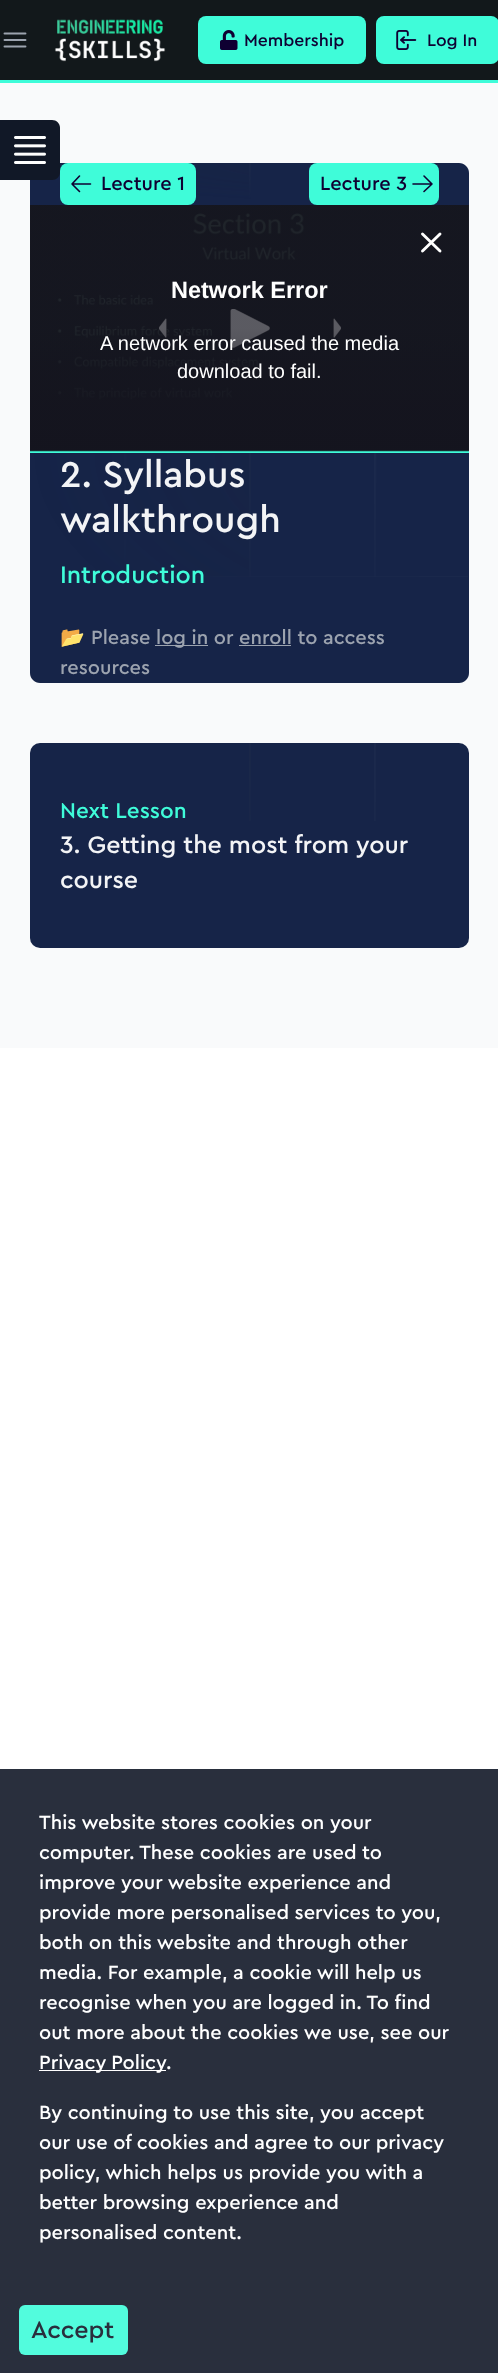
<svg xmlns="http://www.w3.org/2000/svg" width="498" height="2373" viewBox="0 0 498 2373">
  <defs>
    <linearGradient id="g1" gradientUnits="userSpaceOnUse" x1="249" y1="205" x2="249" y2="451"><stop offset="0.5" stop-color="#14141e" stop-opacity="0.7"/><stop offset="1" stop-color="#14141e" stop-opacity="0.9"/></linearGradient>
  </defs>
  <rect width="100%" height="100%" fill="#ffffff"/>
  <rect x="0" y="0" width="498" height="80" fill="#12181b"/>
  <rect x="0" y="80" width="498" height="3" fill="#3ffcd9"/>
  <path d="M4.5 33.5H25.5M4.5 40H25.5M4.5 46.5H25.5" fill="none" stroke="#9ca3af" stroke-width="1.9" stroke-linecap="round" stroke-linejoin="round"/>
  <image x="54" y="19" width="112" height="43" href="img1.png"/>
  <rect x="198" y="16" width="168" height="48" rx="8" fill="#3ffcd9"/>
  <image x="220" y="30" width="18" height="20" href="img2.png"/>
  <text x="244" y="46" font-family="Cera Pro" font-size="17.5" font-weight="500" fill="#0f0032">Membership</text>
  <rect x="376" y="16" width="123" height="48" rx="8" fill="#3ffcd9"/>
  <image x="396" y="30" width="21" height="20" href="img3.png"/>
  <text x="427" y="46" font-family="Cera Pro" font-size="17.5" font-weight="500" fill="#0f0032">Log In</text>
  <rect x="0" y="83" width="498" height="965" fill="#f9fafb"/>
  <path d="M40 163H459C464.5 163 469 167.5 469 173V205H30V173C30 167.5 34.5 163 40 163Z" fill="#162448"/>
  <path d="M0 120H52C56.5 120 60 123.5 60 128V172C60 176.5 56.5 180 52 180H0Z" fill="#111827"/>
  <image x="14" y="136" width="32" height="28" href="img4.png"/>
  <image x="188" y="163" width="281" height="43" href="img5.png"/>
  <rect x="60" y="163" width="136" height="42" rx="8" fill="#3ffcd9"/>
  <path d="M79.5 191.5L72 184M72 184L79.5 176M72 184H90.5" fill="none" stroke="#0f0032" stroke-width="1.6" stroke-linecap="round" stroke-linejoin="round"/>
  <text x="101" y="190" font-family="Cera Pro" font-size="20" font-weight="500" fill="#0f0032">Lecture 1</text>
  <rect x="309" y="163" width="130" height="42" rx="8" fill="#3ffcd9"/>
  <text x="320" y="190" font-family="Cera Pro" font-size="20" font-weight="500" fill="#0f0032">Lecture 3</text>
  <path d="M424 176L432 184M432 184L424 191.5M432 184H413" fill="none" stroke="#0f0032" stroke-width="1.6" stroke-linecap="round" stroke-linejoin="round"/>
  <image x="468" y="205" width="1" height="245" href="img10.png"/>
  <image x="30" y="205" width="439" height="245" href="img6.png"/>
  <image x="159" y="318" width="8" height="20" href="img7.png"/>
  <image x="230" y="309" width="40" height="39" href="img8.png"/>
  <image x="333" y="318" width="8" height="20" href="img9.png"/>
  <rect x="30" y="450" width="439" height="3" fill="#3ffcd9"/>
  <rect x="30" y="205" width="439" height="246" fill="url(#g1)"/>
  <path d="M422.5 251L440 234M422.5 234L440 251" fill="none" stroke="#ffffff" stroke-width="2.9" stroke-linecap="round" stroke-linejoin="round"/>
  <text x="171" y="298" font-family="Liberation Sans" font-size="23.5" font-weight="bold" fill="#ffffff">Network Error</text>
  <text x="100" y="350" font-family="Liberation Sans" font-size="20" fill="#ffffff">A network error caused the media</text>
  <text x="177" y="378" font-family="Liberation Sans" font-size="20" fill="#ffffff">download to fail.</text>
  <path d="M30 453H469V673C469 678.5 464.5 683 459 683H40C34.5 683 30 678.5 30 673Z" fill="#162448"/>
  <image x="30" y="451" width="439" height="126" href="img11.png"/>
  <text x="60" y="487" font-family="Cera Pro" font-size="37.5" font-weight="500" fill="#f3f4f6">2. Syllabus</text>
  <text x="60" y="532" font-family="Cera Pro" font-size="37.5" font-weight="500" fill="#f3f4f6">walkthrough</text>
  <text x="60" y="583" font-family="Cera Pro" font-size="25" font-weight="500" fill="#3ffcd9">Introduction</text>
  <text x="60" y="644" font-family="Noto Color Emoji" font-size="20" fill="#9ca3af">📂</text>
  <text x="91" y="644" font-family="Cera Pro" font-size="20" font-weight="500" fill="#9ca3af">Please</text>
  <rect x="155" y="645" width="53" height="1" fill="#9ca3af"/>
  <text x="156" y="644" font-family="Cera Pro" font-size="20" font-weight="500" fill="#9ca3af">log in or enroll to access</text>
  <rect x="239" y="645" width="52" height="1" fill="#9ca3af"/>
  <text x="60" y="674" font-family="Cera Pro" font-size="20" font-weight="500" fill="#9ca3af">resources</text>
  <rect x="30" y="743" width="439" height="205" rx="10" fill="#162448"/>
  <image x="249" y="743" width="127" height="78" href="img12.png"/>
  <text x="60" y="818" font-family="Cera Pro" font-size="22.5" font-weight="500" fill="#3ffcd9">Next Lesson</text>
  <text x="60" y="853" font-family="Cera Pro" font-size="25" font-weight="500" fill="#f3f4f6">3. Getting the most from your</text>
  <text x="60" y="888" font-family="Cera Pro" font-size="25" font-weight="500" fill="#f3f4f6">course</text>
  <rect x="0" y="1769" width="498" height="604" fill="#292f3d"/>
  <text x="39" y="1829" font-family="Cera Pro" font-size="20" font-weight="500" fill="#ffffff">This website stores cookies on your</text>
  <text x="39" y="1859" font-family="Cera Pro" font-size="20" font-weight="500" fill="#ffffff">computer. These cookies are used to</text>
  <text x="39" y="1889" font-family="Cera Pro" font-size="20" font-weight="500" fill="#ffffff">improve your website experience and</text>
  <text x="39" y="1919" font-family="Cera Pro" font-size="20" font-weight="500" fill="#ffffff">provide more personalised services to you,</text>
  <text x="39" y="1949" font-family="Cera Pro" font-size="20" font-weight="500" fill="#ffffff">both on this website and through other</text>
  <text x="39" y="1979" font-family="Cera Pro" font-size="20" font-weight="500" fill="#ffffff">media. For example, a cookie will help us</text>
  <text x="39" y="2009" font-family="Cera Pro" font-size="20" font-weight="500" fill="#ffffff">recognise when you are logged in. To find</text>
  <text x="39" y="2039" font-family="Cera Pro" font-size="20" font-weight="500" fill="#ffffff">out more about the cookies we use, see our</text>
  <rect x="39" y="2070" width="127" height="1" fill="#ffffff"/>
  <text x="39" y="2069" word-spacing="-1" font-family="Cera Pro" font-size="20" font-weight="500" fill="#ffffff">Privacy Policy</text>
  <text x="166" y="2069" font-family="Cera Pro" font-size="20" font-weight="500" fill="#ffffff">.</text>
  <text x="39" y="2119" font-family="Cera Pro" font-size="20" font-weight="500" fill="#ffffff">By continuing to use this site, you accept</text>
  <text x="39" y="2149" font-family="Cera Pro" font-size="20" font-weight="500" fill="#ffffff">our use of cookies and agree to our privacy</text>
  <text x="39" y="2179" font-family="Cera Pro" font-size="20" font-weight="500" fill="#ffffff">policy, which helps us provide you with a</text>
  <text x="39" y="2209" font-family="Cera Pro" font-size="20" font-weight="500" fill="#ffffff">better browsing experience and</text>
  <text x="39" y="2239" font-family="Cera Pro" font-size="20" font-weight="500" fill="#ffffff">personalised content.</text>
  <rect x="19" y="2305" width="109" height="50" rx="6" fill="#52fcdd"/>
  <text x="31" y="2338" font-family="Cera Pro" font-size="25" font-weight="500" fill="#292f3d">Accept</text>
</svg>
